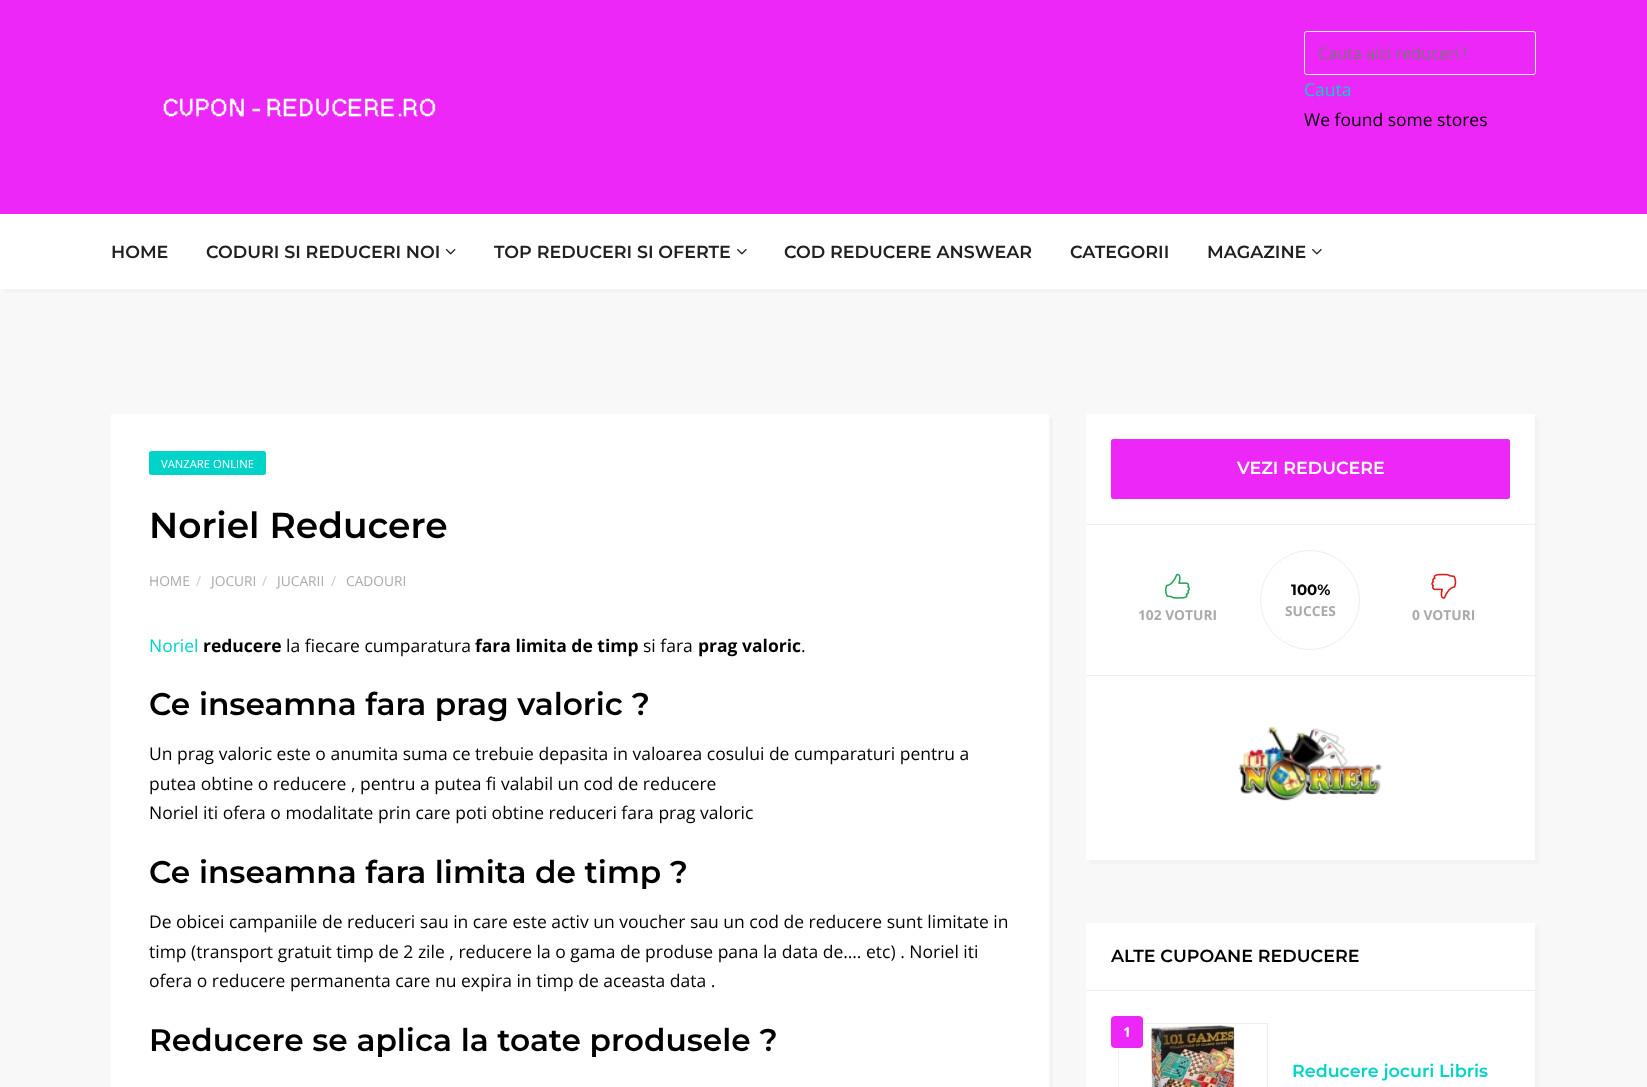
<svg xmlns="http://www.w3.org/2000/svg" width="1647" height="1087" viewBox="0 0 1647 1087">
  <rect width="100%" height="100%" fill="#f8f8f8"/>
  <rect x="0" y="0" width="1647" height="214" fill="#ec27f7"/>
  <image x="163" y="98" width="273" height="19" href="img1.png"/>
  <rect x="1304.5" y="31.5" width="231" height="43" rx="2" fill="none" stroke="#eeeeee"/>
  <text x="1318" y="59" font-family="Open Sans" font-size="16.25" fill="#777777">Cauta aici reduceri !</text>
  <text x="1304" y="96" font-family="Open Sans" font-size="17.5" fill="#02d3c9">Cauta</text>
  <text x="1304" y="126" font-family="Open Sans" font-size="17.5" fill="#000000">We found some stores</text>
  <path d="M4 289V293H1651V218H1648V289Z" fill="#f3f3f3"/>
  <rect x="0" y="214" width="1647" height="75" fill="#ffffff"/>
  <text x="111" y="258" font-family="Montserrat" font-size="17.5" font-weight="600" fill="#202020">HOME</text>
  <text x="206" y="258" font-family="Montserrat" font-size="17.5" font-weight="600" fill="#202020">CODURI SI REDUCERI NOI</text>
  <image x="445" y="248" width="11" height="7" href="img2.png"/>
  <text x="494" y="258" font-family="Montserrat" font-size="17.5" font-weight="600" fill="#202020">TOP REDUCERI SI OFERTE</text>
  <image x="737" y="248" width="10" height="7" href="img3.png"/>
  <text x="784" y="258" font-family="Montserrat" font-size="17.5" font-weight="600" fill="#202020">COD REDUCERE ANSWEAR</text>
  <text x="1070" y="258" font-family="Montserrat" font-size="17.5" font-weight="600" fill="#202020">CATEGORII</text>
  <text x="1207" y="258" font-family="Montserrat" font-size="17.5" font-weight="600" fill="#202020">MAGAZINE</text>
  <image x="1312" y="248" width="10" height="7" href="img3.png"/>
  <path d="M115 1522V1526H1053V418H1049V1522Z" fill="#f3f3f3"/>
  <rect x="111" y="414" width="938" height="673" fill="#ffffff"/>
  <rect x="149" y="451" width="117" height="24" rx="2.5" fill="#02d3c9"/>
  <text x="161" y="468" font-family="Open Sans" font-size="11.25" fill="#ffffff">VANZARE ONLINE</text>
  <text x="149" y="538" font-family="Montserrat" font-size="36" font-weight="600" fill="#000000">Noriel Reducere</text>
  <text x="149" y="586" font-family="Open Sans" font-size="13.75" fill="#aaaaaa">HOME</text>
  <text x="196" y="586" font-family="Open Sans" font-size="13.75" fill="#cccccc">/</text>
  <text x="211" y="586" font-family="Open Sans" font-size="13.75" fill="#aaaaaa">JOCURI</text>
  <text x="262" y="586" font-family="Open Sans" font-size="13.75" fill="#cccccc">/</text>
  <text x="277" y="586" font-family="Open Sans" font-size="13.75" fill="#aaaaaa">JUCARII</text>
  <text x="331" y="586" font-family="Open Sans" font-size="13.75" fill="#cccccc">/</text>
  <text x="346" y="586" font-family="Open Sans" font-size="13.75" fill="#aaaaaa">CADOURI</text>
  <text x="149" y="652" font-family="Open Sans" font-size="17.5" fill="#02d3c9">Noriel</text>
  <text x="203" y="652" font-family="Open Sans" font-size="17.5" font-weight="bold" fill="#000000">reducere</text>
  <text x="286" y="652" font-family="Open Sans" font-size="17.5" fill="#000000">la fiecare cumparatura</text>
  <text x="475" y="652" font-family="Open Sans" font-size="17.5" font-weight="bold" fill="#000000">fara limita de timp</text>
  <text x="643" y="652" font-family="Open Sans" font-size="17.5" fill="#000000">si fara</text>
  <text x="698" y="652" font-family="Open Sans" font-size="17.5" font-weight="bold" fill="#000000">prag valoric</text>
  <text x="801" y="652" font-family="Open Sans" font-size="17.5" fill="#000000">.</text>
  <text x="149" y="715" font-family="Montserrat" font-size="31.25" font-weight="600" fill="#000000">Ce inseamna fara prag valoric ?</text>
  <text x="149" y="760" font-family="Open Sans" font-size="17.5" fill="#000000">Un prag valoric este o anumita suma ce trebuie depasita in valoarea cosului de cumparaturi pentru a</text>
  <text x="149" y="790" font-family="Open Sans" font-size="17.5" fill="#000000">putea obtine o reducere , pentru a putea fi valabil un cod de reducere</text>
  <text x="149" y="819" font-family="Open Sans" font-size="17.5" fill="#000000">Noriel iti ofera o modalitate prin care poti obtine reduceri fara prag valoric</text>
  <text x="149" y="883" font-family="Montserrat" font-size="31.25" font-weight="600" fill="#000000">Ce inseamna fara limita de timp ?</text>
  <text x="149" y="928" font-family="Open Sans" font-size="17.5" fill="#000000">De obicei campaniile de reduceri sau in care este activ un voucher sau un cod de reducere sunt limitate in</text>
  <text x="149" y="958" font-family="Open Sans" font-size="17.5" fill="#000000">timp (transport gratuit timp de 2 zile , reducere la o gama de produse pana la data de…. etc) . Noriel iti</text>
  <text x="149" y="987" font-family="Open Sans" font-size="17.5" fill="#000000">ofera o reducere permanenta care nu expira in timp de aceasta data .</text>
  <text x="149" y="1051" font-family="Montserrat" font-size="31.25" font-weight="600" fill="#000000">Reducere se aplica la toate produsele ?</text>
  <path d="M1090 860V864H1539V418H1535V860Z" fill="#f3f3f3"/>
  <rect x="1086" y="414" width="449" height="446" fill="#ffffff"/>
  <rect x="1086" y="524" width="449" height="1" fill="#eeeeee"/>
  <rect x="1112.5" y="440.5" width="396" height="57" rx="1" fill="none" stroke="#ec27f7" stroke-width="3"/>
  <rect x="1114" y="442" width="393" height="54" fill="#ec27f7"/>
  <text x="1237" y="474" font-family="Montserrat" font-size="17.5" font-weight="600" fill="#ffffff">VEZI REDUCERE</text>
  <rect x="1086" y="675" width="449" height="1" fill="#eeeeee"/>
  <image x="1165" y="573" width="25" height="26" href="img4.png"/>
  <text x="1138" y="620" font-family="Open Sans" font-size="13.75" font-weight="bold" fill="#aaaaaa">102 VOTURI</text>
  <circle cx="1310" cy="600" r="49.5" fill="none" stroke="#eeeeee"/>
  <text x="1291" y="595" font-family="Montserrat" font-size="15" font-weight="bold" fill="#000000">100%</text>
  <text x="1285" y="616" font-family="Open Sans" font-size="13.75" font-weight="bold" fill="#aaaaaa">SUCCES</text>
  <image x="1431" y="573" width="26" height="26" href="img5.png"/>
  <text x="1412" y="620" font-family="Open Sans" font-size="13.75" font-weight="bold" fill="#aaaaaa">0 VOTURI</text>
  <image x="1238" y="726" width="144" height="75" href="img6.png"/>
  <path d="M1090 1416V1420H1539V926H1535V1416Z" fill="#f3f3f3"/>
  <rect x="1086" y="923" width="449" height="164" fill="#ffffff"/>
  <rect x="1086" y="990" width="449" height="1" fill="#eeeeee"/>
  <text x="1111" y="962" font-family="Montserrat" font-size="17.5" font-weight="600" fill="#000000">ALTE CUPOANE REDUCERE</text>
  <rect x="1118.5" y="1023.5" width="149" height="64" fill="none" stroke="#eeeeee"/>
  <rect x="1111" y="1016" width="32" height="32" rx="4" fill="#ec27f7"/>
  <text x="1123" y="1037" font-family="Open Sans" font-size="13.75" font-weight="bold" fill="#ffffff">1</text>
  <image x="1150" y="1024" width="85" height="63" href="img7.png"/>
  <text x="1292" y="1077" font-family="Montserrat" font-size="17.5" font-weight="600" fill="#02d3c9">Reducere jocuri Libris</text>
</svg>
